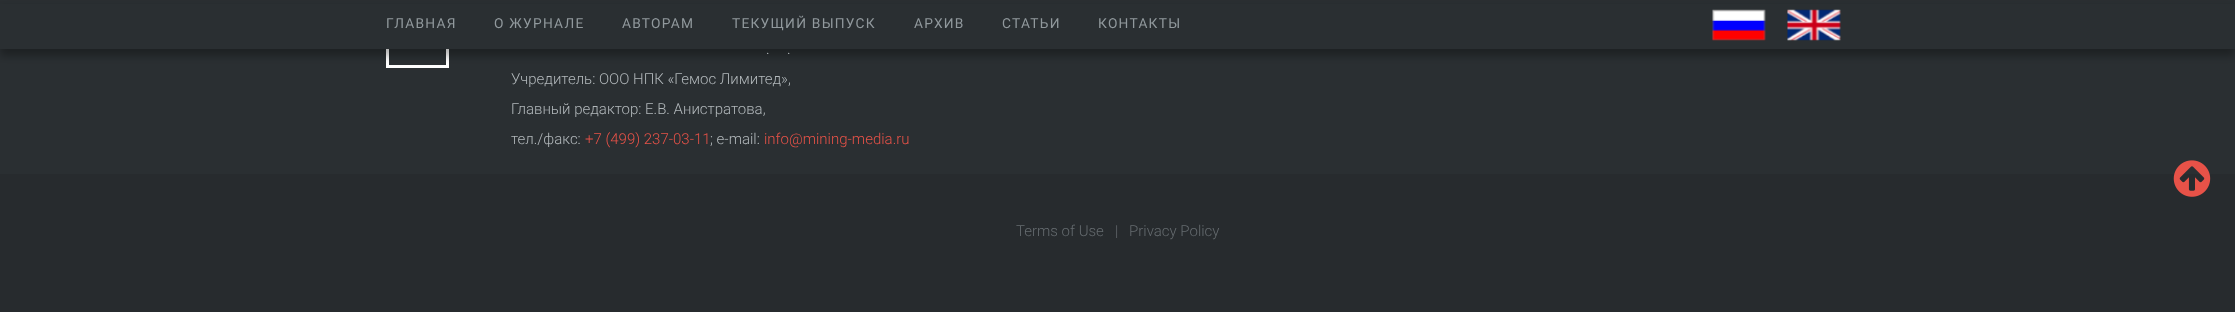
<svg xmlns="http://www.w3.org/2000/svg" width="2235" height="312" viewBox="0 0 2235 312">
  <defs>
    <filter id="blur1" x="-50%" y="-200%" width="200%" height="500%"><feGaussianBlur stdDeviation="4"/></filter>
  </defs>
  <rect width="100%" height="100%" fill="#2a2f32"/>
  <rect x="387.5" y="6.5" width="60" height="60" fill="none" stroke="#ffffff" stroke-width="3"/>
  <rect x="0" y="8" width="2235" height="48" fill="#000000" fill-opacity="0.3" filter="url(#blur1)"/>
  <rect x="0" y="4" width="2235" height="45" fill="#2a2f32"/>
  <text x="386" y="28" font-family="Roboto" font-size="13.75" letter-spacing="1.25" fill="#91999d">ГЛАВНАЯ</text>
  <text x="494" y="28" font-family="Roboto" font-size="13.75" letter-spacing="1.25" fill="#91999d">О ЖУРНАЛЕ</text>
  <text x="622" y="28" font-family="Roboto" font-size="13.75" letter-spacing="1.25" fill="#91999d">АВТОРАМ</text>
  <text x="732" y="28" font-family="Roboto" font-size="13.75" letter-spacing="1.25" fill="#91999d">ТЕКУЩИЙ ВЫПУСК</text>
  <text x="914" y="28" font-family="Roboto" font-size="13.75" letter-spacing="1.25" fill="#91999d">АРХИВ</text>
  <text x="1002" y="28" font-family="Roboto" font-size="13.75" letter-spacing="1.25" fill="#91999d">СТАТЬИ</text>
  <text x="1098" y="28" font-family="Roboto" font-size="13.75" letter-spacing="1.25" fill="#91999d">КОНТАКТЫ</text>
  <image x="1712" y="9" width="54" height="32" href="img1.png"/>
  <image x="1787" y="9" width="54" height="32" href="img2.png"/>
  <text x="766" y="54" font-family="Roboto" font-size="15" font-weight="300" fill="#b2b8bb">.</text>
  <text x="787" y="54" font-family="Roboto" font-size="15" font-weight="300" fill="#b2b8bb">.</text>
  <text x="511" y="84" font-family="Roboto" font-size="15" font-weight="300" fill="#b2b8bb">Учредитель: ООО НПК «Гемос Лимитед»,</text>
  <text x="511" y="114" font-family="Roboto" font-size="15" font-weight="300" fill="#b2b8bb">Главный редактор: Е.В. Анистратова,</text>
  <text x="511" y="144" font-family="Roboto" font-size="15" font-weight="300" fill="#b2b8bb">тел./факс:</text>
  <text x="585" y="144" font-family="Roboto" font-size="15" font-weight="300" fill="#e75248">+7 (499) 237-03-11</text>
  <text x="710" y="144" font-family="Roboto" font-size="15" font-weight="300" fill="#b2b8bb">; e-mail:</text>
  <text x="764" y="144" font-family="Roboto" font-size="15" font-weight="300" fill="#e75248">info@mining-media.ru</text>
  <rect x="0" y="174" width="2235" height="138" fill="#272b2e"/>
  <text x="1016" y="236" font-family="Roboto" font-size="15" font-weight="300" fill="#656b6f">Terms of Use</text>
  <text x="1115" y="236" font-family="Roboto" font-size="15" font-weight="300" fill="#656b6f">|</text>
  <text x="1129" y="236" font-family="Roboto" font-size="15" font-weight="300" fill="#656b6f">Privacy Policy</text>
  <image x="2173" y="160" width="38" height="37" href="img3.png"/>
</svg>
